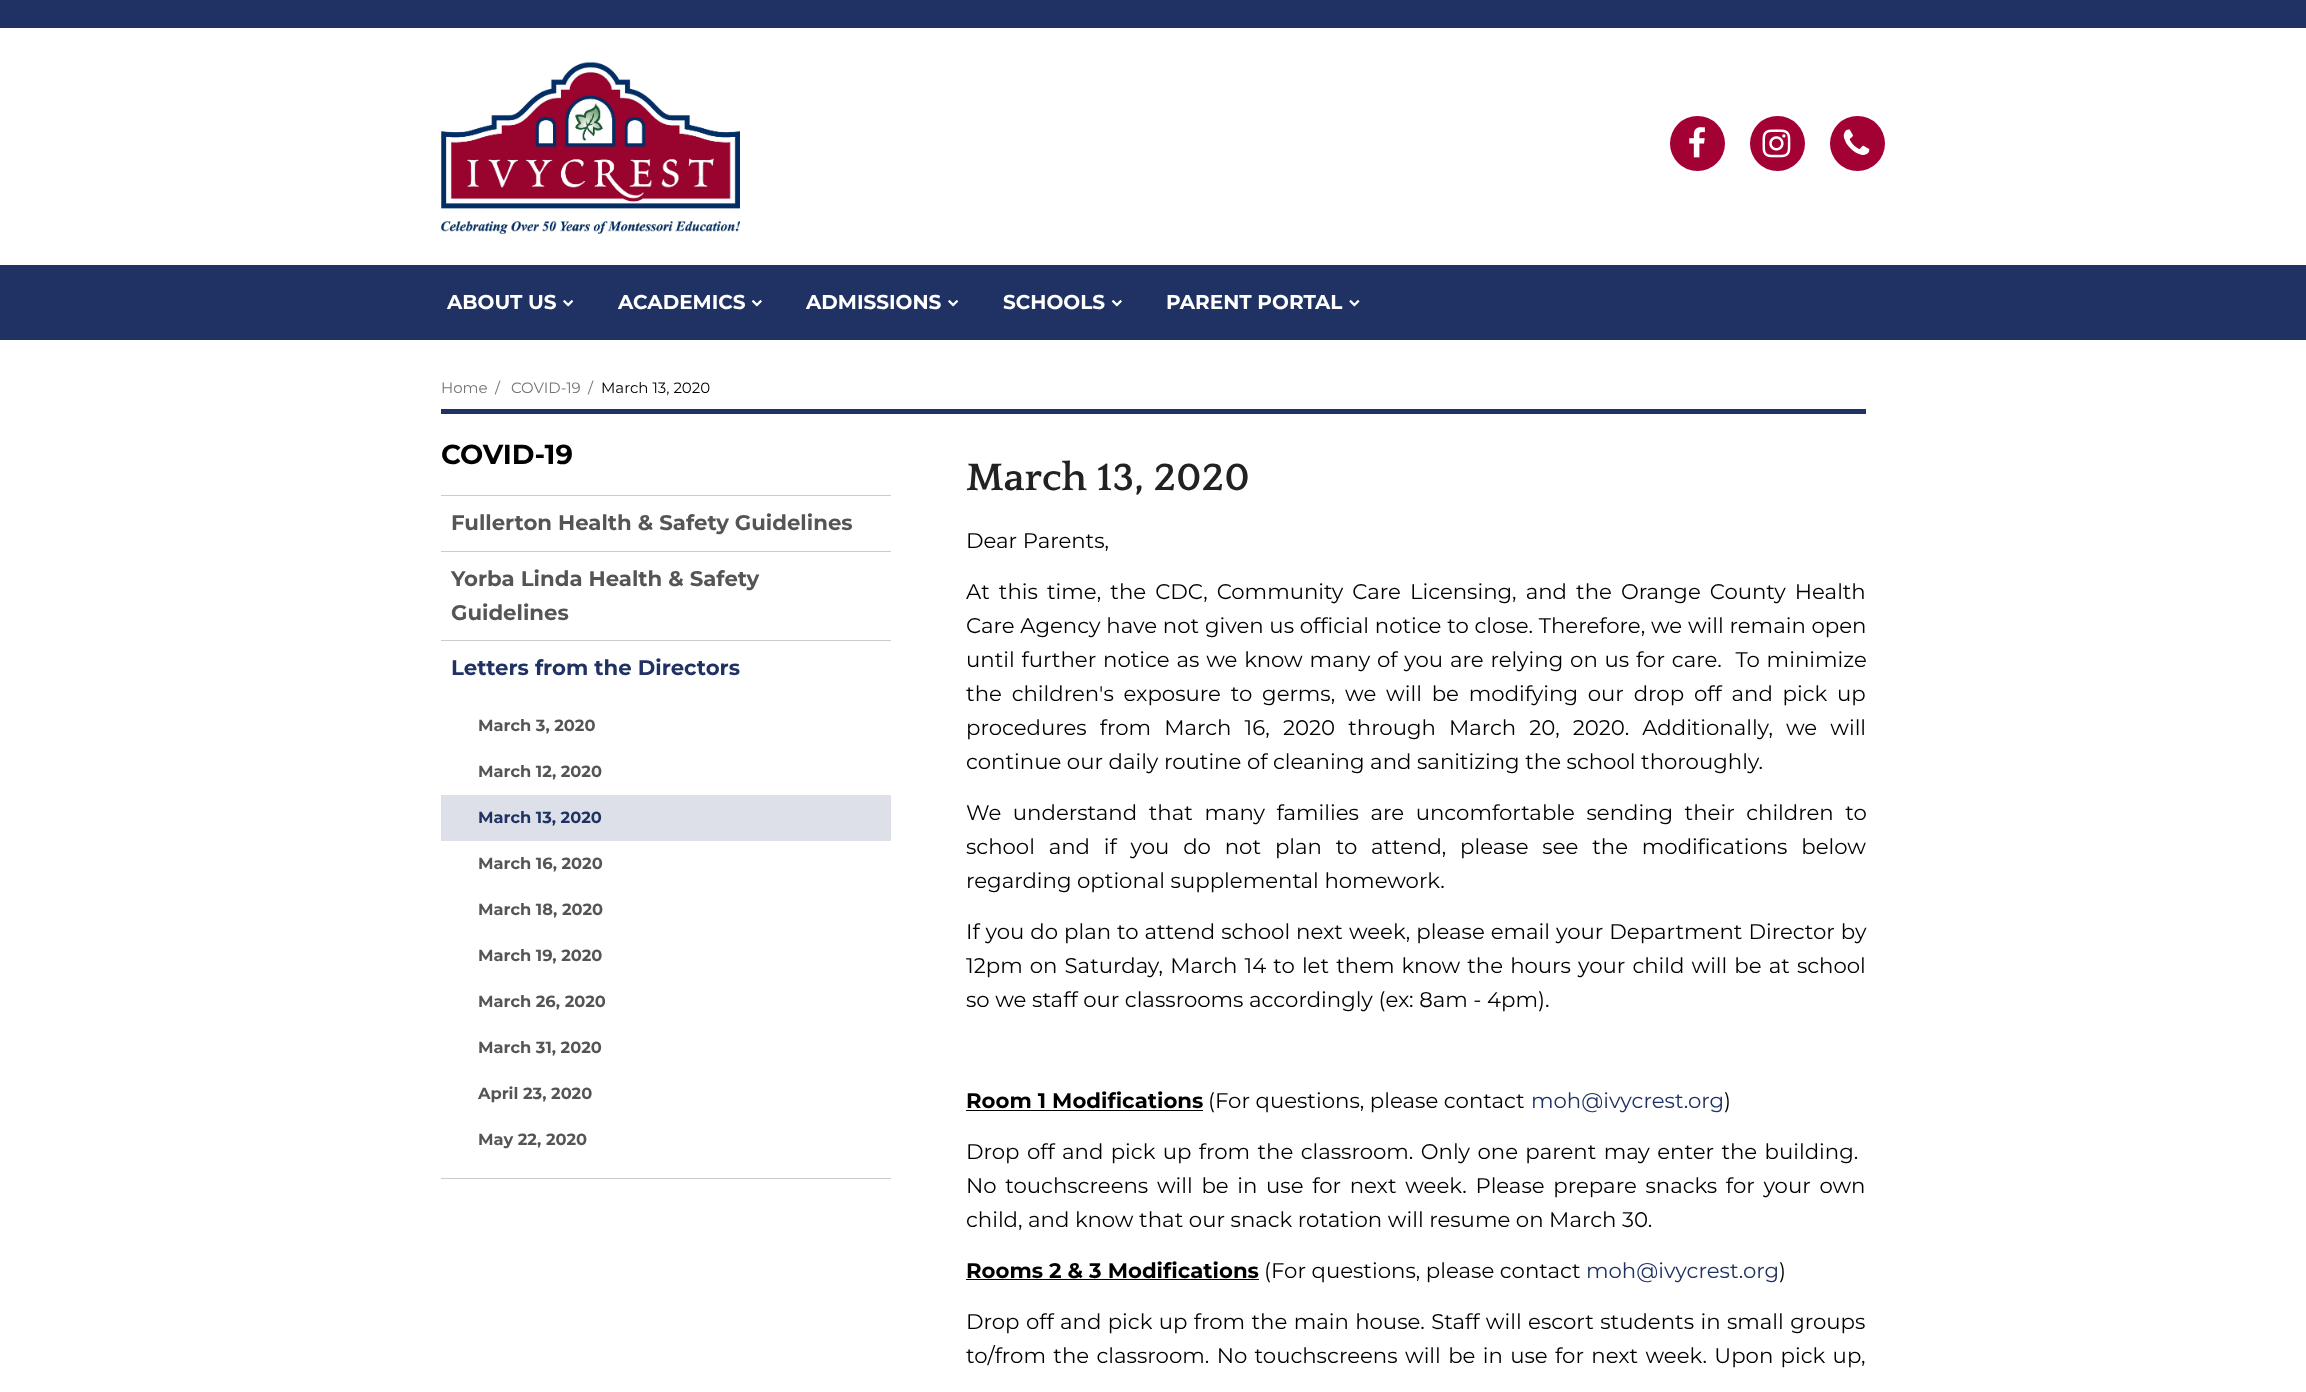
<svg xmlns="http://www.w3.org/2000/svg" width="2306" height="1392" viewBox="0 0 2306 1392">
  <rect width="100%" height="100%" fill="#ffffff"/>
  <rect x="0" y="0" width="2306" height="28" fill="#1f3263"/>
  <image x="441" y="62" width="299" height="172" href="img1.png"/>
  <circle cx="1697.5" cy="143.5" r="27.5" fill="#a30134"/>
  <image x="1689" y="127" width="16" height="31" href="img2.png"/>
  <circle cx="1777.5" cy="143.5" r="27.5" fill="#a30134"/>
  <image x="1762" y="129" width="29" height="29" href="img3.png"/>
  <circle cx="1857.5" cy="143.5" r="27.5" fill="#a30134"/>
  <image x="1843" y="129" width="27" height="26" href="img4.png"/>
  <rect x="0" y="265" width="2306" height="75" fill="#1f3263"/>
  <text x="447" y="309" font-family="Montserrat" font-size="20" font-weight="bold" fill="#ffffff">ABOUT US</text>
  <image x="563" y="300" width="11" height="7" href="img5.png"/>
  <text x="618" y="309" font-family="Montserrat" font-size="20" font-weight="bold" fill="#ffffff">ACADEMICS</text>
  <image x="751" y="300" width="11" height="7" href="img6.png"/>
  <text x="806" y="309" font-family="Montserrat" font-size="20" font-weight="bold" fill="#ffffff">ADMISSIONS</text>
  <image x="948" y="300" width="11" height="7" href="img5.png"/>
  <text x="1003" y="309" font-family="Montserrat" font-size="20" font-weight="bold" fill="#ffffff">SCHOOLS</text>
  <image x="1111" y="300" width="11" height="7" href="img6.png"/>
  <text x="1166" y="309" font-family="Montserrat" font-size="20" font-weight="bold" fill="#ffffff">PARENT PORTAL</text>
  <image x="1349" y="300" width="11" height="7" href="img7.png"/>
  <rect x="441" y="409" width="1425" height="5" fill="#1f3263"/>
  <text x="441" y="393" font-family="Montserrat" font-size="15" fill="#747474">Home</text>
  <text x="495" y="393" font-family="Montserrat" font-size="15" fill="#747474">/</text>
  <text x="511" y="393" font-family="Montserrat" font-size="15" fill="#747474">COVID-19</text>
  <text x="588" y="393" font-family="Montserrat" font-size="15" fill="#747474">/</text>
  <text x="601" y="393" font-family="Montserrat" font-size="15" fill="#000000">March 13, 2020</text>
  <text x="441" y="464" font-family="Montserrat" font-size="27.5" font-weight="bold" fill="#000000">COVID-19</text>
  <rect x="441" y="495" width="450" height="1" fill="#cccccc"/>
  <rect x="441" y="551" width="450" height="1" fill="#cccccc"/>
  <text x="451" y="530" font-family="Montserrat" font-size="21.25" font-weight="bold" fill="#555555">Fullerton Health &amp; Safety Guidelines</text>
  <rect x="441" y="640" width="450" height="1" fill="#cccccc"/>
  <text x="451" y="586" font-family="Montserrat" font-size="21.25" font-weight="bold" fill="#555555">Yorba Linda Health &amp; Safety</text>
  <text x="451" y="620" font-family="Montserrat" font-size="21.25" font-weight="bold" fill="#555555">Guidelines</text>
  <rect x="441" y="1178" width="450" height="1" fill="#cccccc"/>
  <text x="451" y="675" font-family="Montserrat" font-size="21.25" font-weight="bold" fill="#1f3263">Letters from the Directors</text>
  <text x="478" y="731" font-family="Montserrat" font-size="16.25" font-weight="bold" fill="#555555">March 3, 2020</text>
  <text x="478" y="777" font-family="Montserrat" font-size="16.25" font-weight="bold" fill="#555555">March 12, 2020</text>
  <rect x="441" y="795" width="450" height="46" fill="#dde0e8"/>
  <text x="478" y="823" font-family="Montserrat" font-size="16.25" font-weight="bold" fill="#1f3263">March 13, 2020</text>
  <text x="478" y="869" font-family="Montserrat" font-size="16.25" font-weight="bold" fill="#555555">March 16, 2020</text>
  <text x="478" y="915" font-family="Montserrat" font-size="16.25" font-weight="bold" fill="#555555">March 18, 2020</text>
  <text x="478" y="961" font-family="Montserrat" font-size="16.25" font-weight="bold" fill="#555555">March 19, 2020</text>
  <text x="478" y="1007" font-family="Montserrat" font-size="16.25" font-weight="bold" fill="#555555">March 26, 2020</text>
  <text x="478" y="1053" font-family="Montserrat" font-size="16.25" font-weight="bold" fill="#555555">March 31, 2020</text>
  <text x="478" y="1099" font-family="Montserrat" font-size="16.25" font-weight="bold" fill="#555555">April 23, 2020</text>
  <text x="478" y="1145" font-family="Montserrat" font-size="16.25" font-weight="bold" fill="#555555">May 22, 2020</text>
  <text x="966" y="490" font-family="Quattrocento" font-size="40" font-weight="bold" fill="#222222">March 13, 2020</text>
  <text x="966" y="548" font-family="Montserrat" font-size="21.25" fill="#000000">Dear Parents,</text>
  <text x="966" y="599" word-spacing="3.5" font-family="Montserrat" font-size="21.25" fill="#000000">At this time, the CDC, Community Care Licensing, and the Orange County Health</text>
  <text x="966" y="633" word-spacing="0.2" font-family="Montserrat" font-size="21.25" fill="#000000">Care Agency have not given us official notice to close. Therefore, we will remain open</text>
  <text x="966" y="667" word-spacing="1.25" font-family="Montserrat" font-size="21.25" fill="#000000" xml:space="preserve">until further notice as we know many of you are relying on us for care.  To minimize</text>
  <text x="966" y="701" word-spacing="4.25" font-family="Montserrat" font-size="21.25" fill="#000000">the children's exposure to germs, we will be modifying our drop off and pick up</text>
  <text x="966" y="735" word-spacing="7.5" font-family="Montserrat" font-size="21.25" fill="#000000">procedures from March 16, 2020 through March 20, 2020. Additionally, we will</text>
  <text x="966" y="769" font-family="Montserrat" font-size="21.25" fill="#000000">continue our daily routine of cleaning and sanitizing the school thoroughly.</text>
  <text x="966" y="820" word-spacing="6" font-family="Montserrat" font-size="21.25" fill="#000000">We understand that many families are uncomfortable sending their children to</text>
  <text x="966" y="854" word-spacing="8.25" font-family="Montserrat" font-size="21.25" fill="#000000">school and if you do not plan to attend, please see the modifications below</text>
  <text x="966" y="888" font-family="Montserrat" font-size="21.25" fill="#000000">regarding optional supplemental homework.</text>
  <text x="966" y="939" word-spacing="0.4" font-family="Montserrat" font-size="21.25" fill="#000000">If you do plan to attend school next week, please email your Department Director by</text>
  <text x="966" y="973" word-spacing="1.5" font-family="Montserrat" font-size="21.25" fill="#000000">12pm on Saturday, March 14 to let them know the hours your child will be at school</text>
  <text x="966" y="1007" font-family="Montserrat" font-size="21.25" fill="#000000">so we staff our classrooms accordingly (ex: 8am - 4pm).</text>
  <text x="966" y="1108" font-family="Montserrat" font-size="21.25" font-weight="bold" fill="#000000">Room 1 Modifications</text>
  <rect x="966" y="1110" width="237" height="1" fill="#000000"/>
  <text x="1208" y="1108" font-family="Montserrat" font-size="21.25" fill="#000000">(For questions, please contact</text>
  <text x="1531" y="1108" font-family="Montserrat" font-size="21.25" fill="#1f3263">moh@ivycrest.org</text>
  <text x="1724" y="1108" font-family="Montserrat" font-size="21.25" fill="#000000">)</text>
  <text x="966" y="1159" word-spacing="1.8" font-family="Montserrat" font-size="21.25" fill="#000000">Drop off and pick up from the classroom. Only one parent may enter the building.</text>
  <text x="966" y="1193" word-spacing="3.1" font-family="Montserrat" font-size="21.25" fill="#000000">No touchscreens will be in use for next week. Please prepare snacks for your own</text>
  <text x="966" y="1227" font-family="Montserrat" font-size="21.25" fill="#000000">child, and know that our snack rotation will resume on March 30.</text>
  <text x="966" y="1278" font-family="Montserrat" font-size="21.25" font-weight="bold" fill="#000000">Rooms 2 &amp; 3 Modifications</text>
  <rect x="966" y="1279" width="293" height="1" fill="#000000"/>
  <text x="1264" y="1278" font-family="Montserrat" font-size="21.25" fill="#000000">(For questions, please contact</text>
  <text x="1586" y="1278" font-family="Montserrat" font-size="21.25" fill="#1f3263">moh@ivycrest.org</text>
  <text x="1779" y="1278" font-family="Montserrat" font-size="21.25" fill="#000000">)</text>
  <text x="966" y="1329" word-spacing="0.8" font-family="Montserrat" font-size="21.25" fill="#000000">Drop off and pick up from the main house. Staff will escort students in small groups</text>
  <text x="966" y="1363" word-spacing="1.8" font-family="Montserrat" font-size="21.25" fill="#000000">to/from the classroom. No touchscreens will be in use for next week. Upon pick up,</text>
</svg>
